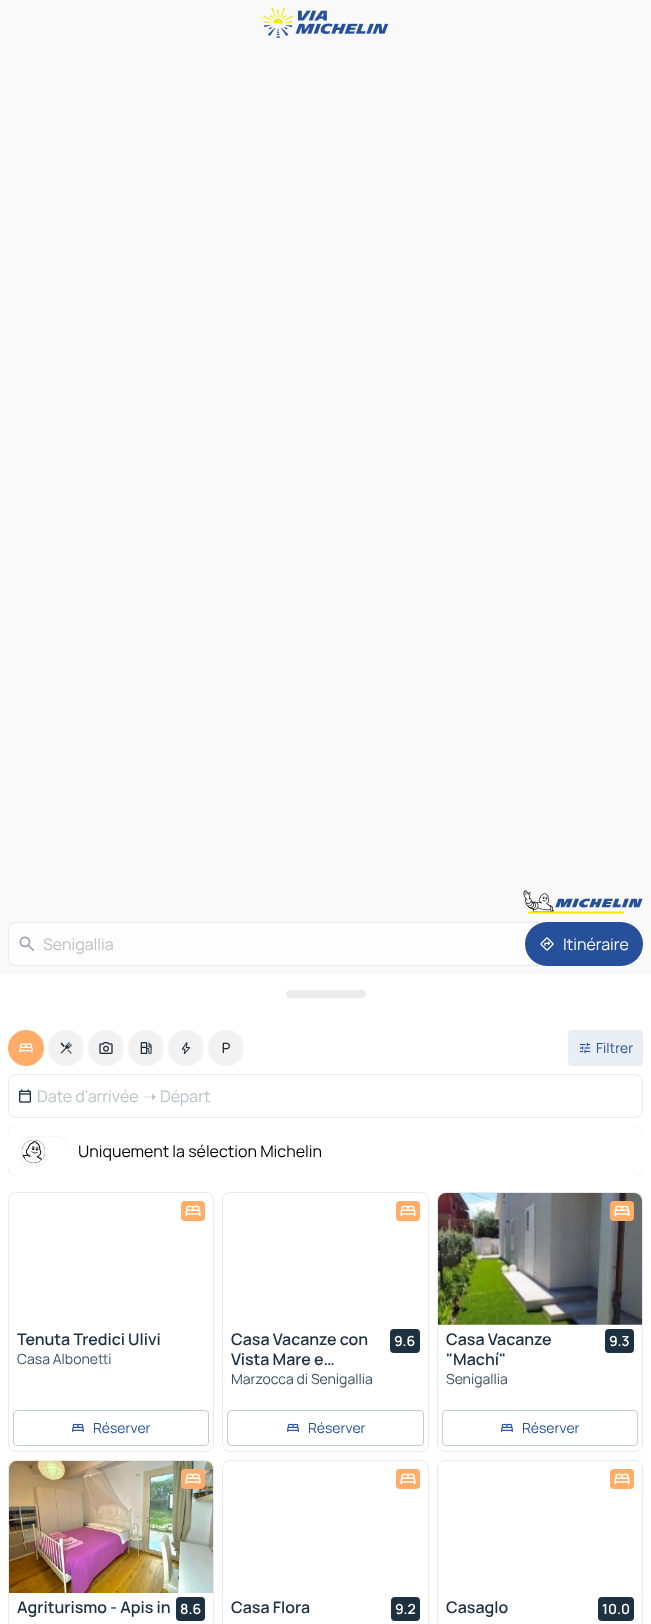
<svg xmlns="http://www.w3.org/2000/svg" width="651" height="1624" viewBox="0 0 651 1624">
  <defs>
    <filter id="blur1" x="-50%" y="-200%" width="200%" height="500%"><feGaussianBlur stdDeviation="0.5"/></filter>
  </defs>
  <rect width="100%" height="100%" fill="#f9f9f9"/>
  <image x="263" y="8" width="126" height="30" href="img1.png"/>
  <image x="523" y="890" width="120" height="24" href="img2.png"/>
  <rect x="8.5" y="922.5" width="540" height="43" rx="7.5" fill="#fdfdfe" stroke="#e8eaec"/>
  <image x="19" y="936" width="16" height="16" href="img3.png"/>
  <text x="43" y="950" font-family="Manrope" font-size="16" font-weight="200" fill="#c0c0c0">Senigallia</text>
  <rect x="525" y="922" width="118" height="44" rx="22" fill="#27509b"/>
  <image x="540" y="937" width="14" height="14" href="img4.png"/>
  <text x="563" y="950" font-family="Manrope" font-size="16" font-weight="200" fill="#ffffff">Itinéraire</text>
  <rect x="0" y="974" width="651" height="650" fill="#ffffff"/>
  <rect x="286" y="990" width="80" height="8" rx="4" fill="#ececec"/>
  <circle cx="26" cy="1048" r="18" fill="#ffad69"/>
  <image x="19" y="1043" width="14" height="10" href="img5.png"/>
  <circle cx="66" cy="1048" r="18" fill="#f2f2f2"/>
  <image x="60" y="1042" width="12" height="12" href="img6.png"/>
  <circle cx="106" cy="1048" r="18" fill="#f2f2f2"/>
  <image x="99" y="1042" width="14" height="12" href="img7.png"/>
  <circle cx="146" cy="1048" r="18" fill="#f2f2f2"/>
  <image x="140" y="1042" width="12" height="12" href="img8.png"/>
  <circle cx="186" cy="1048" r="18" fill="#f2f2f2"/>
  <image x="181" y="1042" width="9" height="12" href="img9.png"/>
  <circle cx="226" cy="1048" r="18" fill="#f2f2f2"/>
  <image x="222" y="1042" width="8" height="12" href="img10.png"/>
  <rect x="568" y="1030" width="75" height="36" rx="4" fill="#e9eef5"/>
  <image x="579" y="1042" width="12" height="12" href="img11.png"/>
  <text x="596" y="1053" font-family="Manrope" font-size="14" font-weight="200" fill="#27509b">Filtrer</text>
  <rect x="8.5" y="1074.5" width="634" height="43" rx="7.5" fill="none" stroke="#e8eaec"/>
  <image x="19" y="1089" width="12" height="14" href="img12.png"/>
  <text x="37" y="1102" font-family="Manrope" font-size="16" font-weight="200" fill="#bbc1c6">Date d'arrivée</text>
  <text x="143" y="1102" font-family="DejaVu Sans" font-size="16" fill="#bbc1c6">➝</text>
  <text x="160" y="1102" font-family="Manrope" font-size="16" font-weight="200" fill="#bbc1c6">Départ</text>
  <rect x="8" y="1126" width="635" height="50" rx="8" fill="#0c1a4b" fill-opacity="0.24" filter="url(#blur1)"/>
  <rect x="8" y="1126" width="635" height="50" rx="8" fill="#ffffff"/>
  <path d="M33 1137C41 1137 54 1135 61 1138C66 1140 70 1146 70 1152C70 1144 65 1138 58 1136H30C23 1138 18 1145 18 1152C18 1144 24 1137 33 1137Z" fill="#ebebeb"/>
  <image x="21" y="1140" width="25" height="27" href="img13.png"/>
  <text x="78" y="1157" font-family="Manrope" font-size="16" font-weight="200" fill="#000000">Uniquement la sélection Michelin</text>
  <rect x="8.5" y="1192.5" width="205" height="259" rx="7.5" fill="none" stroke="#e8eaec"/>
  <rect x="181" y="1201" width="24" height="20" rx="4" fill="#ffad69"/>
  <image x="185" y="1205" width="16" height="12" href="img14.png"/>
  <text x="17" y="1345" font-family="'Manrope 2'" font-size="16" font-weight="200" fill="#1d3140">Tenuta Tredici Ulivi</text>
  <text x="17" y="1364" font-family="Manrope" font-size="14" font-weight="200" fill="#3a4f5f">Casa Albonetti</text>
  <rect x="13.5" y="1410.5" width="195" height="35" rx="3.5" fill="none" stroke="#becbe1"/>
  <image x="72" y="1423" width="12" height="9" href="img15.png"/>
  <text x="93" y="1433" font-family="Manrope" font-size="14" font-weight="200" fill="#27509b">Réserver</text>
  <rect x="222.5" y="1192.5" width="206" height="259" rx="7.5" fill="none" stroke="#e8eaec"/>
  <rect x="396" y="1201" width="24" height="20" rx="4" fill="#ffad69"/>
  <image x="400" y="1205" width="16" height="12" href="img14.png"/>
  <text x="231" y="1345" font-family="'Manrope 2'" font-size="16" font-weight="200" fill="#1d3140">Casa Vacanze con</text>
  <text x="231" y="1365" font-family="'Manrope 2'" font-size="16" font-weight="200" fill="#1d3140">Vista Mare e…</text>
  <rect x="390" y="1329" width="30" height="24" rx="4" fill="#1d3140"/>
  <text x="394" y="1346" font-family="'Manrope 2'" font-size="14" font-weight="200" fill="#ffffff">9.6</text>
  <text x="231" y="1384" font-family="Manrope" font-size="14" font-weight="200" fill="#3a4f5f">Marzocca di Senigallia</text>
  <rect x="227.5" y="1410.5" width="196" height="35" rx="3.5" fill="none" stroke="#becbe1"/>
  <image x="287" y="1423" width="12" height="9" href="img15.png"/>
  <text x="308" y="1433" font-family="Manrope" font-size="14" font-weight="200" fill="#27509b">Réserver</text>
  <rect x="437.5" y="1192.5" width="205" height="259" rx="7.5" fill="none" stroke="#e8eaec"/>
  <image x="438" y="1193" width="204" height="132" href="img16.png"/>
  <rect x="610" y="1201" width="24" height="20" rx="4" fill="#ffad69"/>
  <image x="614" y="1205" width="16" height="12" href="img14.png"/>
  <text x="446" y="1345" font-family="'Manrope 2'" font-size="16" font-weight="200" fill="#1d3140">Casa Vacanze</text>
  <text x="446" y="1365" font-family="'Manrope 2'" font-size="16" font-weight="200" fill="#1d3140">"Machí"</text>
  <rect x="605" y="1329" width="29" height="24" rx="4" fill="#1d3140"/>
  <text x="609" y="1346" font-family="'Manrope 2'" font-size="14" font-weight="200" fill="#ffffff">9.3</text>
  <text x="446" y="1384" font-family="Manrope" font-size="14" font-weight="200" fill="#3a4f5f">Senigallia</text>
  <rect x="442.5" y="1410.5" width="195" height="35" rx="3.5" fill="none" stroke="#becbe1"/>
  <image x="501" y="1423" width="12" height="9" href="img15.png"/>
  <text x="522" y="1433" font-family="Manrope" font-size="14" font-weight="200" fill="#27509b">Réserver</text>
  <rect x="8.5" y="1460.5" width="205" height="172" rx="7.5" fill="none" stroke="#e8eaec"/>
  <image x="9" y="1461" width="204" height="132" href="img17.png"/>
  <rect x="181" y="1469" width="24" height="20" rx="4" fill="#ffad69"/>
  <image x="185" y="1473" width="16" height="12" href="img14.png"/>
  <text x="17" y="1613" font-family="'Manrope 2'" font-size="16" font-weight="200" fill="#1d3140">Agriturismo - Apis in</text>
  <rect x="176" y="1597" width="29" height="24" rx="4" fill="#1d3140"/>
  <text x="180" y="1614" font-family="'Manrope 2'" font-size="14" font-weight="200" fill="#ffffff">8.6</text>
  <rect x="222.5" y="1460.5" width="206" height="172" rx="7.5" fill="none" stroke="#e8eaec"/>
  <rect x="396" y="1469" width="24" height="20" rx="4" fill="#ffad69"/>
  <image x="400" y="1473" width="16" height="12" href="img14.png"/>
  <text x="231" y="1613" font-family="'Manrope 2'" font-size="16" font-weight="200" fill="#1d3140">Casa Flora</text>
  <rect x="391" y="1597" width="29" height="24" rx="4" fill="#1d3140"/>
  <text x="395" y="1614" font-family="'Manrope 2'" font-size="14" font-weight="200" fill="#ffffff">9.2</text>
  <rect x="437.5" y="1460.5" width="205" height="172" rx="7.5" fill="none" stroke="#e8eaec"/>
  <rect x="610" y="1469" width="24" height="20" rx="4" fill="#ffad69"/>
  <image x="614" y="1473" width="16" height="12" href="img14.png"/>
  <text x="446" y="1613" font-family="'Manrope 2'" font-size="16" font-weight="200" fill="#1d3140">Casaglo</text>
  <rect x="598" y="1597" width="36" height="24" rx="4" fill="#1d3140"/>
  <text x="602" y="1614" font-family="'Manrope 2'" font-size="14" font-weight="200" fill="#ffffff">10.0</text>
</svg>
